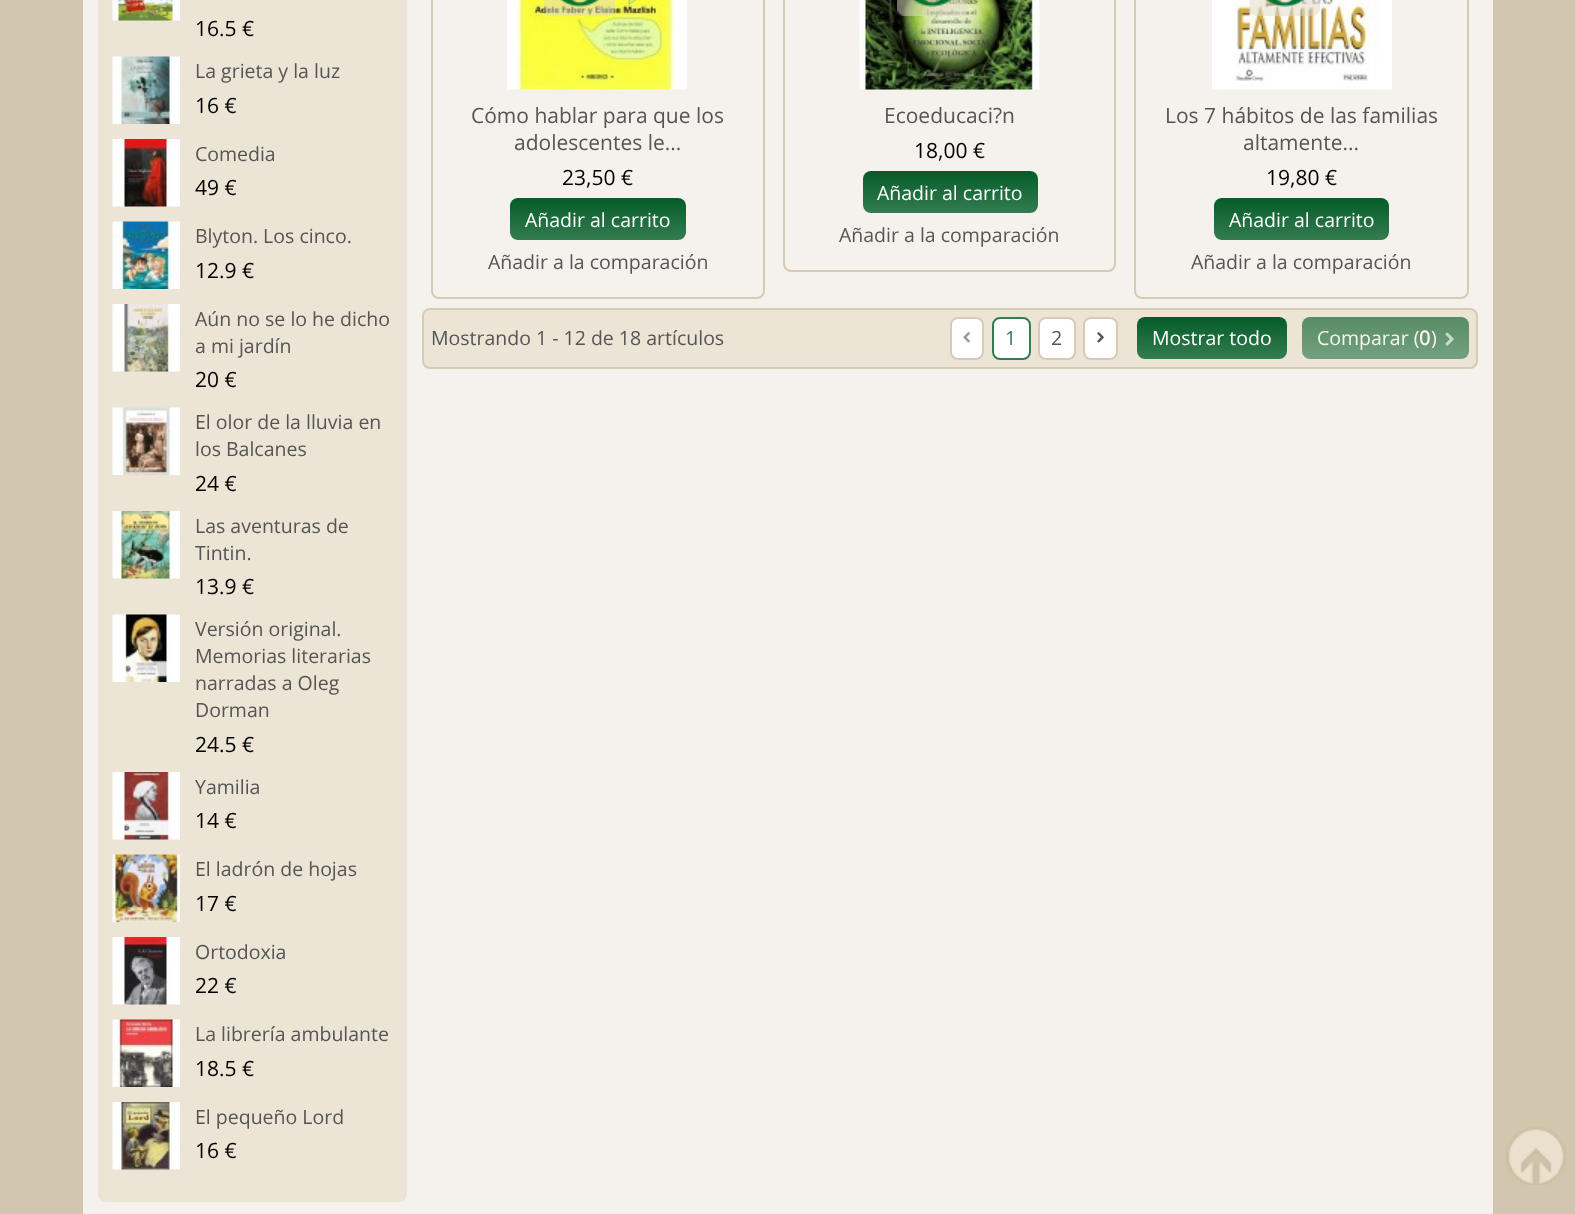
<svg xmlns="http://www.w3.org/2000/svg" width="1575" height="1214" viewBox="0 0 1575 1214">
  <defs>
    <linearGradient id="g1" gradientUnits="userSpaceOnUse" x1="598" y1="198" x2="598" y2="240"><stop offset="0" stop-color="#055c28"/><stop offset="1" stop-color="#347c51"/></linearGradient>
    <linearGradient id="g2" gradientUnits="userSpaceOnUse" x1="950" y1="171" x2="950" y2="213"><stop offset="0" stop-color="#055c28"/><stop offset="1" stop-color="#347c51"/></linearGradient>
    <linearGradient id="g3" gradientUnits="userSpaceOnUse" x1="1301" y1="198" x2="1301" y2="240"><stop offset="0" stop-color="#055c28"/><stop offset="1" stop-color="#347c51"/></linearGradient>
    <linearGradient id="g4" gradientUnits="userSpaceOnUse" x1="1212" y1="317" x2="1212" y2="359"><stop offset="0" stop-color="#055c28"/><stop offset="1" stop-color="#347c51"/></linearGradient>
    <linearGradient id="g5" gradientUnits="userSpaceOnUse" x1="1385" y1="317" x2="1385" y2="359"><stop offset="0" stop-color="#568c65"/><stop offset="1" stop-color="#74a07f"/></linearGradient>
  </defs>
  <rect width="100%" height="100%" fill="#d3c6ae"/>
  <rect x="83" y="0" width="1410" height="1214" fill="#f5f2ed"/>
  <path d="M98-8H407V1194C407 1198.5 403.5 1202 399 1202H106C101.5 1202 98 1198.5 98 1194Z" fill="#ece4d5"/>
  <image x="112" y="0" width="68" height="21" href="img1.png"/>
  <text x="195" y="36" font-family="Open Sans" font-size="21" fill="#000000">16.5 €</text>
  <image x="112" y="56" width="68" height="68" href="img2.png"/>
  <text x="195" y="78" font-family="Open Sans" font-size="19.5" fill="#555555">La grieta y la luz</text>
  <text x="195" y="113" font-family="Open Sans" font-size="21" fill="#000000">16 €</text>
  <image x="112" y="139" width="68" height="68" href="img3.png"/>
  <text x="195" y="161" font-family="Open Sans" font-size="19.5" fill="#555555">Comedia</text>
  <text x="195" y="195" font-family="Open Sans" font-size="21" fill="#000000">49 €</text>
  <image x="112" y="221" width="68" height="68" href="img4.png"/>
  <text x="195" y="243" font-family="Open Sans" font-size="19.5" fill="#555555">Blyton. Los cinco.</text>
  <text x="195" y="278" font-family="Open Sans" font-size="21" fill="#000000">12.9 €</text>
  <image x="112" y="304" width="68" height="68" href="img5.png"/>
  <text x="195" y="326" font-family="Open Sans" font-size="19.5" fill="#555555">Aún no se lo he dicho</text>
  <text x="195" y="353" font-family="Open Sans" font-size="19.5" fill="#555555">a mi jardín</text>
  <text x="195" y="387" font-family="Open Sans" font-size="21" fill="#000000">20 €</text>
  <image x="112" y="407" width="68" height="68" href="img6.png"/>
  <text x="195" y="429" font-family="Open Sans" font-size="19.5" fill="#555555">El olor de la lluvia en</text>
  <text x="195" y="456" font-family="Open Sans" font-size="19.5" fill="#555555">los Balcanes</text>
  <text x="195" y="491" font-family="Open Sans" font-size="21" fill="#000000">24 €</text>
  <image x="112" y="511" width="68" height="68" href="img7.png"/>
  <text x="195" y="533" font-family="Open Sans" font-size="19.5" fill="#555555">Las aventuras de</text>
  <text x="195" y="560" font-family="Open Sans" font-size="19.5" fill="#555555">Tintin.</text>
  <text x="195" y="594" font-family="Open Sans" font-size="21" fill="#000000">13.9 €</text>
  <image x="112" y="614" width="68" height="68" href="img8.png"/>
  <text x="195" y="636" font-family="Open Sans" font-size="19.5" fill="#555555">Versión original.</text>
  <text x="195" y="663" font-family="Open Sans" font-size="19.5" fill="#555555">Memorias literarias</text>
  <text x="195" y="690" font-family="Open Sans" font-size="19.5" fill="#555555">narradas a Oleg</text>
  <text x="195" y="717" font-family="Open Sans" font-size="19.5" fill="#555555">Dorman</text>
  <text x="195" y="752" font-family="Open Sans" font-size="21" fill="#000000">24.5 €</text>
  <image x="112" y="772" width="68" height="68" href="img9.png"/>
  <text x="195" y="794" font-family="Open Sans" font-size="19.5" fill="#555555">Yamilia</text>
  <text x="195" y="828" font-family="Open Sans" font-size="21" fill="#000000">14 €</text>
  <image x="112" y="854" width="68" height="68" href="img10.png"/>
  <text x="195" y="876" font-family="Open Sans" font-size="19.5" fill="#555555">El ladrón de hojas</text>
  <text x="195" y="911" font-family="Open Sans" font-size="21" fill="#000000">17 €</text>
  <image x="112" y="937" width="68" height="68" href="img11.png"/>
  <text x="195" y="959" font-family="Open Sans" font-size="19.5" fill="#555555">Ortodoxia</text>
  <text x="195" y="993" font-family="Open Sans" font-size="21" fill="#000000">22 €</text>
  <image x="112" y="1019" width="68" height="68" href="img12.png"/>
  <text x="195" y="1041" font-family="Open Sans" font-size="19.5" fill="#555555">La librería ambulante</text>
  <text x="195" y="1076" font-family="Open Sans" font-size="21" fill="#000000">18.5 €</text>
  <image x="112" y="1102" width="68" height="68" href="img13.png"/>
  <text x="195" y="1124" font-family="Open Sans" font-size="19.5" fill="#555555">El pequeño Lord</text>
  <text x="195" y="1158" font-family="Open Sans" font-size="21" fill="#000000">16 €</text>
  <rect x="432" y="-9" width="332" height="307" rx="7" fill="none" stroke="#d7cbb5" stroke-width="2"/>
  <image x="507" y="0" width="180" height="90" href="img14.png"/>
  <image x="544" y="0" width="71" height="16" href="img15.png"/>
  <text x="471" y="123" font-family="Open Sans" font-size="21" fill="#555555">Cómo hablar para que los</text>
  <text x="514" y="150" font-family="Open Sans" font-size="21" fill="#555555">adolescentes le...</text>
  <text x="562" y="185" font-family="Open Sans" font-size="21" fill="#000000">23,50 €</text>
  <rect x="510" y="198" width="176" height="42" rx="8" fill="url(#g1)"/>
  <text x="525" y="227" font-family="Open Sans" font-size="19.5" fill="#ffffff">Añadir al carrito</text>
  <text x="488" y="269" font-family="Open Sans" font-size="19.5" fill="#555555">Añadir a la comparación</text>
  <rect x="784" y="-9" width="331" height="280" rx="7" fill="none" stroke="#d7cbb5" stroke-width="2"/>
  <image x="859" y="0" width="181" height="90" href="img16.png"/>
  <image x="897" y="0" width="71" height="16" href="img17.png"/>
  <text x="884" y="123" font-family="Open Sans" font-size="21" fill="#555555">Ecoeducaci?n</text>
  <text x="914" y="158" font-family="Open Sans" font-size="21" fill="#000000">18,00 €</text>
  <rect x="863" y="171" width="175" height="42" rx="8" fill="url(#g2)"/>
  <text x="877" y="200" font-family="Open Sans" font-size="19.5" fill="#ffffff">Añadir al carrito</text>
  <text x="839" y="242" font-family="Open Sans" font-size="19.5" fill="#555555">Añadir a la comparación</text>
  <rect x="1135" y="-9" width="333" height="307" rx="7" fill="none" stroke="#d7cbb5" stroke-width="2"/>
  <image x="1212" y="0" width="180" height="90" href="img18.png"/>
  <image x="1249" y="0" width="71" height="16" href="img19.png"/>
  <text x="1165" y="123" font-family="Open Sans" font-size="21" fill="#555555">Los 7 hábitos de las familias</text>
  <text x="1243" y="150" font-family="Open Sans" font-size="21" fill="#555555">altamente...</text>
  <text x="1266" y="185" font-family="Open Sans" font-size="21" fill="#000000">19,80 €</text>
  <rect x="1214" y="198" width="175" height="42" rx="8" fill="url(#g3)"/>
  <text x="1229" y="227" font-family="Open Sans" font-size="19.5" fill="#ffffff">Añadir al carrito</text>
  <text x="1191" y="269" font-family="Open Sans" font-size="19.5" fill="#555555">Añadir a la comparación</text>
  <rect x="423" y="309" width="1054" height="59" rx="7" fill="#ece4d5" stroke="#d7cbb5" stroke-width="2"/>
  <text x="431" y="345" font-family="Open Sans" font-size="19.5" fill="#555555">Mostrando 1 - 12 de 18 artículos</text>
  <rect x="951" y="318" width="32" height="41" rx="7" fill="#ffffff" stroke="#d7cbb5" stroke-width="2"/>
  <image x="963" y="332" width="7" height="11" href="img20.png"/>
  <rect x="993" y="318" width="37" height="41" rx="7" fill="#ffffff" stroke="#347c51" stroke-width="2"/>
  <text x="1005" y="345" font-family="Open Sans" font-size="19.5" fill="#347c51">1</text>
  <rect x="1039" y="318" width="36" height="41" rx="7" fill="#ffffff" stroke="#d7cbb5" stroke-width="2"/>
  <text x="1051" y="345" font-family="Open Sans" font-size="19.5" fill="#555555">2</text>
  <rect x="1084" y="318" width="33" height="41" rx="7" fill="#ffffff" stroke="#d7cbb5" stroke-width="2"/>
  <image x="1097" y="332" width="7" height="11" href="img21.png"/>
  <rect x="1137" y="317" width="150" height="42" rx="8" fill="url(#g4)"/>
  <text x="1152" y="345" font-family="Open Sans" font-size="19.5" fill="#ffffff">Mostrar todo</text>
  <rect x="1302" y="317" width="167" height="42" rx="8" fill="url(#g5)"/>
  <text x="1317" y="345" font-family="Open Sans" font-size="19.5" fill="#f8f6f0">Comparar (</text>
  <text x="1419" y="345" font-family="Open Sans" font-size="19.5" font-weight="bold" fill="#f8f6f0">0</text>
  <text x="1431" y="345" font-family="Open Sans" font-size="19.5" fill="#f8f6f0">)</text>
  <image x="1445" y="332" width="9" height="14" href="img22.png"/>
  <image x="1506" y="1127" width="60" height="58" href="img23.png"/>
</svg>
